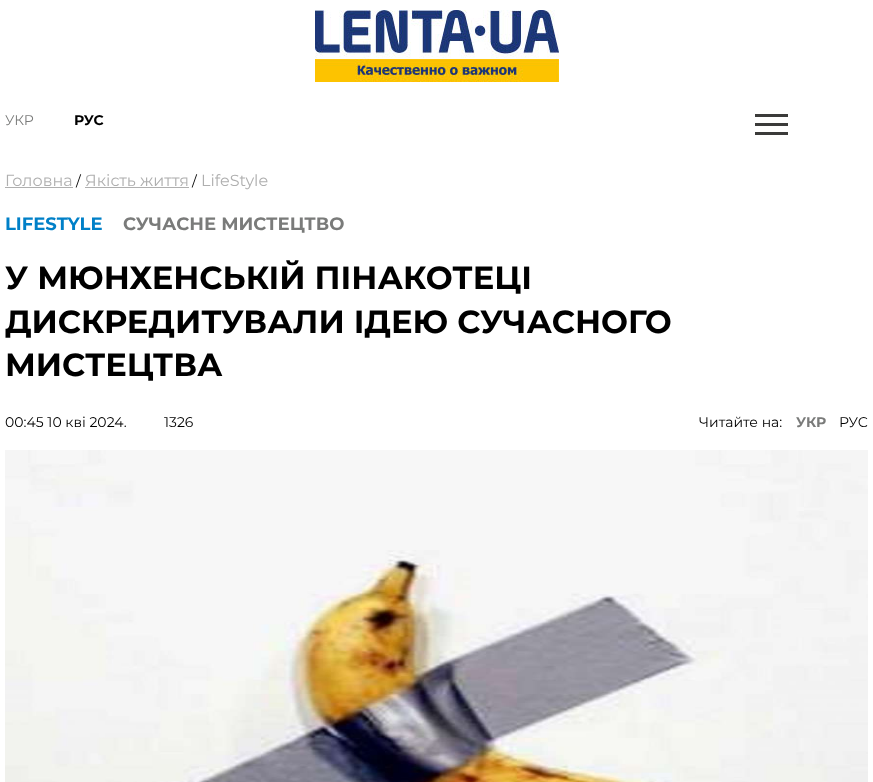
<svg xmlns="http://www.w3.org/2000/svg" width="873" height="782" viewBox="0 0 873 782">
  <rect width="100%" height="100%" fill="#ffffff"/>
  <image x="315" y="10" width="244" height="72" href="img1.png"/>
  <text x="5" y="125" font-family="Montserrat" font-size="14" fill="#7a7b7a">УКР</text>
  <text x="74" y="125" font-family="Montserrat" font-size="14" font-weight="bold" fill="#000000">РУС</text>
  <image x="755" y="114" width="33" height="21" href="img2.png"/>
  <text x="5" y="186" font-family="Montserrat" font-size="16" fill="#afafaf">Головна</text>
  <rect x="5" y="187" width="68" height="1" fill="#afafaf"/>
  <text x="76" y="186" font-family="Montserrat" font-size="14" fill="#000000">/</text>
  <text x="85" y="186" font-family="Montserrat" font-size="16" fill="#afafaf">Якість життя</text>
  <rect x="85" y="187" width="104" height="1" fill="#afafaf"/>
  <text x="192" y="186" font-family="Montserrat" font-size="14" fill="#000000">/</text>
  <text x="201" y="186" font-family="Montserrat" font-size="16" fill="#afafaf">LifeStyle</text>
  <text x="5" y="230" font-family="Montserrat" font-size="18" font-weight="bold" fill="#0080c8">LIFESTYLE</text>
  <text x="123" y="230" font-family="Montserrat" font-size="18" font-weight="bold" fill="#7a7b7a">СУЧАСНЕ МИСТЕЦТВО</text>
  <text x="5" y="289" font-family="Montserrat" font-size="32" font-weight="bold" fill="#000000">У МЮНХЕНСЬКІЙ ПІНАКОТЕЦІ</text>
  <text x="5" y="333" font-family="Montserrat" font-size="32" font-weight="bold" fill="#000000">ДИСКРЕДИТУВАЛИ ІДЕЮ СУЧАСНОГО</text>
  <text x="5" y="376" font-family="Montserrat" font-size="32" font-weight="bold" fill="#000000">МИСТЕЦТВА</text>
  <text x="5" y="427" font-family="Montserrat" font-size="14" fill="#000000">00:45 10 кві 2024.</text>
  <text x="164" y="427" font-family="Montserrat" font-size="14" fill="#000000">1326</text>
  <text x="699" y="427" font-family="Montserrat" font-size="14" fill="#000000">Читайте на:</text>
  <text x="796" y="427" font-family="Montserrat" font-size="14" font-weight="bold" fill="#7a7b7a">УКР</text>
  <text x="839" y="427" font-family="Montserrat" font-size="14" fill="#000000">РУС</text>
  <image x="5" y="450" width="863" height="332" href="img3.png"/>
</svg>
